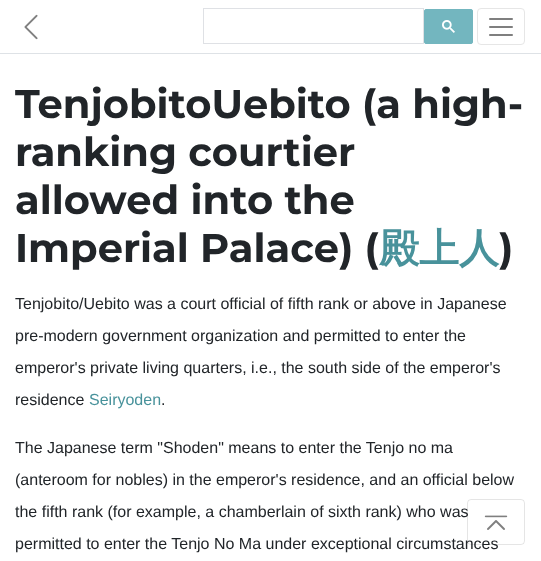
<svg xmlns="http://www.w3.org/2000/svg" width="541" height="561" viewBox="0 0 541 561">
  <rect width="100%" height="100%" fill="#ffffff"/>
  <rect x="0" y="53" width="541" height="1" fill="#dee2e6"/>
  <image x="24" y="14" width="14" height="26" href="img1.png"/>
  <rect x="203.5" y="8.5" width="220" height="35" fill="none" stroke="#dfe1e5"/>
  <rect x="424.5" y="9.5" width="48" height="34" rx="1.5" fill="#73b6bf" stroke="#73b6bf"/>
  <image x="442" y="20" width="13" height="13" href="img2.png"/>
  <rect x="477.5" y="8.5" width="47" height="36" rx="3.5" fill="none" stroke="#e6e6e6"/>
  <image x="489" y="18" width="24" height="18" href="img3.png"/>
  <text x="15" y="118" font-family="Montserrat" font-size="40" font-weight="bold" fill="#212529">TenjobitoUebito (a high-</text>
  <text x="15" y="166" font-family="Montserrat" font-size="40" font-weight="bold" fill="#212529">ranking courtier</text>
  <text x="15" y="214" font-family="Montserrat" font-size="40" font-weight="bold" fill="#212529">allowed into the</text>
  <text x="15" y="262" font-family="Montserrat" font-size="40" font-weight="bold" fill="#212529">Imperial Palace) (</text>
  <text x="379" y="262" font-family="WenQuanYi Zen Hei" font-size="40" font-weight="bold" fill="#48929b">殿上人</text>
  <text x="499" y="262" font-family="Montserrat" font-size="40" font-weight="bold" fill="#212529">)</text>
  <text x="15" y="309" font-family="Liberation Sans" font-size="16" fill="#212529">Tenjobito/Uebito was a court official of fifth rank or above in Japanese</text>
  <text x="15" y="341" font-family="Liberation Sans" font-size="16" fill="#212529">pre-modern government organization and permitted to enter the</text>
  <text x="15" y="373" font-family="Liberation Sans" font-size="16" fill="#212529">emperor's private living quarters, i.e., the south side of the emperor's</text>
  <text x="15" y="405" font-family="Liberation Sans" font-size="16" fill="#212529">residence</text>
  <text x="89" y="405" font-family="Liberation Sans" font-size="16" fill="#48929b">Seiryoden</text>
  <text x="161" y="405" font-family="Liberation Sans" font-size="16" fill="#212529">.</text>
  <text x="15" y="453" font-family="Liberation Sans" font-size="16" fill="#212529">The Japanese term "Shoden" means to enter the Tenjo no ma</text>
  <text x="15" y="485" font-family="Liberation Sans" font-size="16" fill="#212529">(anteroom for nobles) in the emperor's residence, and an official below</text>
  <text x="15" y="517" font-family="Liberation Sans" font-size="16" fill="#212529">the fifth rank (for example, a chamberlain of sixth rank) who was</text>
  <text x="15" y="549" font-family="Liberation Sans" font-size="16" fill="#212529">permitted to enter the Tenjo No Ma under exceptional circumstances</text>
  <rect x="467.5" y="499.5" width="57" height="45" rx="3.5" fill="none" stroke="#000000" stroke-opacity="0.1"/>
  <image x="484" y="515" width="24" height="15" href="img4.png"/>
</svg>
